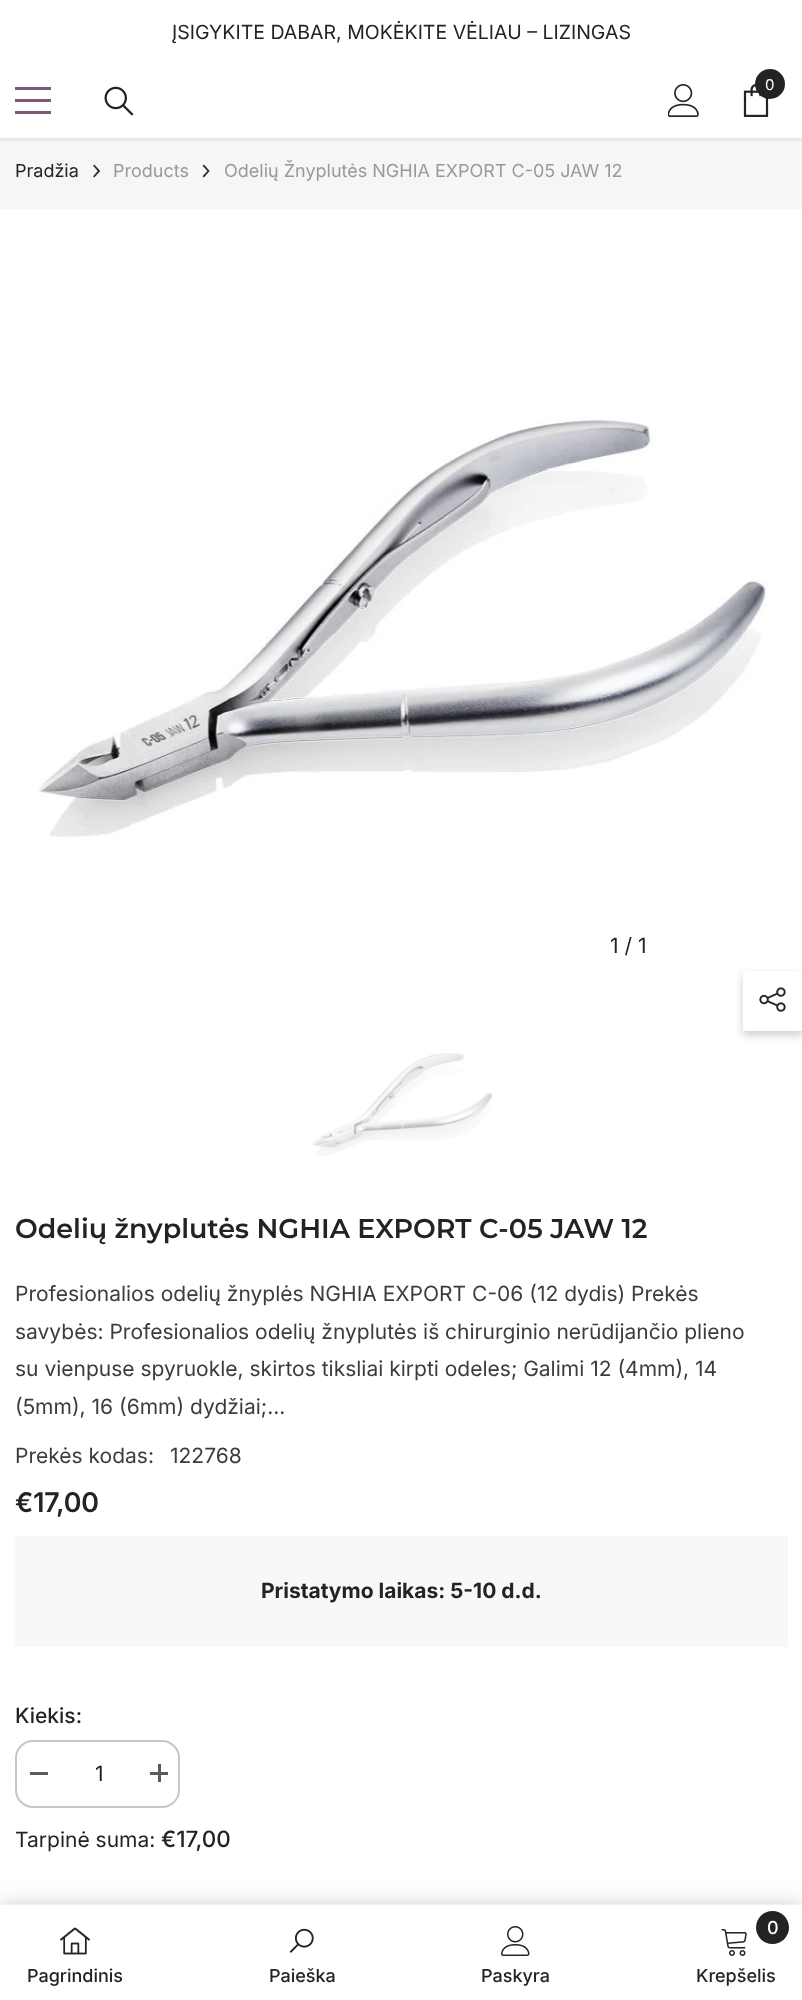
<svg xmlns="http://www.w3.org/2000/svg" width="802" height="2000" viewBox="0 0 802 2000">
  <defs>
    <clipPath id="clip1"><rect x="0" y="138" width="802" height="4"/></clipPath>
    <filter id="blur1" x="-50%" y="-200%" width="200%" height="500%"><feGaussianBlur stdDeviation="2"/></filter>
    <filter id="blur2" x="-50%" y="-200%" width="200%" height="500%"><feGaussianBlur stdDeviation="15"/></filter>
    <filter id="blur3" x="-50%" y="-200%" width="200%" height="500%"><feGaussianBlur stdDeviation="7"/></filter>
    <filter id="blur4" x="-50%" y="-200%" width="200%" height="500%"><feGaussianBlur stdDeviation="5"/></filter>
  </defs>
  <rect width="100%" height="100%" fill="#ffffff"/>
  <text x="172" y="39" font-family="Inter" font-size="19.5" fill="#232323">ĮSIGYKITE DABAR, MOKĖKITE VĖLIAU – LIZINGAS</text>
  <rect x="0" y="138" width="802" height="71" fill="#f6f6f6"/>
  <g clip-path="url(#clip1)">
    <rect x="0" y="65" width="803" height="75" fill="#000000" fill-opacity="0.1" filter="url(#blur1)"/>
  </g>
  <rect x="15" y="99" width="36" height="3" fill="#7c5a74"/>
  <rect x="15" y="87" width="36" height="3" fill="#7c5a74"/>
  <rect x="15" y="111" width="36" height="3" fill="#7c5a74"/>
  <image x="104" y="86" width="30" height="30" href="img1.png"/>
  <image x="668" y="84" width="31" height="33" href="img2.png"/>
  <image x="743" y="84" width="26" height="33" href="img3.png"/>
  <circle cx="770" cy="84" r="15" fill="#232323"/>
  <text x="765" y="90" font-family="Inter" font-size="15" fill="#ffffff">0</text>
  <text x="15" y="177" font-family="Inter" font-size="18" fill="#232323">Pradžia</text>
  <image x="93" y="164" width="7" height="14" href="img4.png"/>
  <text x="113" y="177" font-family="Inter" font-size="18" fill="#999999">Products</text>
  <image x="202" y="164" width="8" height="14" href="img5.png"/>
  <text x="224" y="177" font-family="Inter" font-size="18" fill="#999999">Odelių Žnyplutės NGHIA EXPORT C-05 JAW 12</text>
  <image x="38" y="419" width="731" height="418" href="img6.png"/>
  <text x="610" y="953" font-family="Inter" font-size="21" fill="#232323">1 / 1</text>
  <image x="312" y="1053" width="181" height="103" href="img7.png"/>
  <text x="15" y="1238" font-family="Montserrat" font-size="27" font-weight="600" fill="#232323">Odelių žnyplutės NGHIA EXPORT C-05 JAW 12</text>
  <text x="15" y="1301" font-family="Inter" font-size="21" fill="#3c3c3c">Profesionalios odelių žnyplės NGHIA EXPORT C-06 (12 dydis) Prekės</text>
  <text x="15" y="1339" font-family="Inter" font-size="21" fill="#3c3c3c">savybės: Profesionalios odelių žnyplutės iš chirurginio nerūdijančio plieno</text>
  <text x="15" y="1376" font-family="Inter" font-size="21" fill="#3c3c3c">su vienpuse spyruokle, skirtos tiksliai kirpti odeles; Galimi 12 (4mm), 14</text>
  <text x="15" y="1414" font-family="Inter" font-size="21" fill="#3c3c3c">(5mm), 16 (6mm) dydžiai;...</text>
  <text x="15" y="1463" font-family="Inter" font-size="21" fill="#3c3c3c">Prekės kodas:</text>
  <text x="170" y="1463" font-family="Inter" font-size="21" fill="#3c3c3c">122768</text>
  <text x="15" y="1512" font-family="Inter" font-size="27" font-weight="600" fill="#232323">€17,00</text>
  <rect x="15" y="1536" width="773" height="111" fill="#f7f8fa"/>
  <text x="261" y="1598" font-family="Inter" font-size="21" font-weight="bold" fill="#232323">Pristatymo laikas: 5-10 d.d.</text>
  <text x="15" y="1723" font-family="Inter" font-size="21" font-weight="500" fill="#232323">Kiekis:</text>
  <rect x="16" y="1741" width="163" height="66" rx="17" fill="none" stroke="#c7c7c7" stroke-width="2"/>
  <rect x="30" y="1772" width="18" height="3" fill="#5a5a5a"/>
  <text x="95" y="1781" font-family="Inter" font-size="21" fill="#232323">1</text>
  <rect x="150" y="1772" width="18" height="3" fill="#5a5a5a"/>
  <rect x="158" y="1764" width="3" height="18" fill="#5a5a5a"/>
  <text x="15" y="1847" font-family="Inter" font-size="21" fill="#232323">Tarpinė suma:</text>
  <text x="161" y="1847" font-family="Inter" font-size="22.5" font-weight="500" fill="#232323">€17,00</text>
  <rect x="0" y="1905" width="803" height="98" fill="#000000" fill-opacity="0.1" filter="url(#blur2)"/>
  <rect x="0" y="1904" width="802" height="1" fill="#ffffff"/>
  <rect x="0" y="1905" width="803" height="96" fill="#000000" fill-opacity="0.12" filter="url(#blur3)"/>
  <rect x="0" y="1905" width="802" height="95" fill="#ffffff"/>
  <image x="60" y="1927" width="30" height="28" href="img8.png"/>
  <text x="27" y="1982" font-family="Inter" font-size="18" font-weight="500" fill="#232323">Pagrindinis</text>
  <image x="289" y="1928" width="25" height="25" href="img9.png"/>
  <text x="269" y="1982" font-family="Inter" font-size="18" font-weight="500" fill="#232323">Paieška</text>
  <image x="501" y="1926" width="29" height="30" href="img10.png"/>
  <text x="481" y="1982" font-family="Inter" font-size="18" font-weight="500" fill="#232323">Paskyra</text>
  <circle cx="772.5" cy="1927.5" r="16.5" fill="#232323"/>
  <text x="767" y="1934" font-family="Inter" font-size="18" font-weight="500" fill="#ffffff">0</text>
  <image x="721" y="1929" width="26" height="27" href="img11.png"/>
  <text x="696" y="1982" font-family="Inter" font-size="18" font-weight="500" fill="#232323">Krepšelis</text>
  <rect x="743" y="975" width="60" height="60" fill="#000000" fill-opacity="0.2" filter="url(#blur4)"/>
  <rect x="743" y="971" width="59" height="60" fill="#ffffff"/>
  <image x="759" y="987" width="27" height="25" href="img12.png"/>
</svg>
